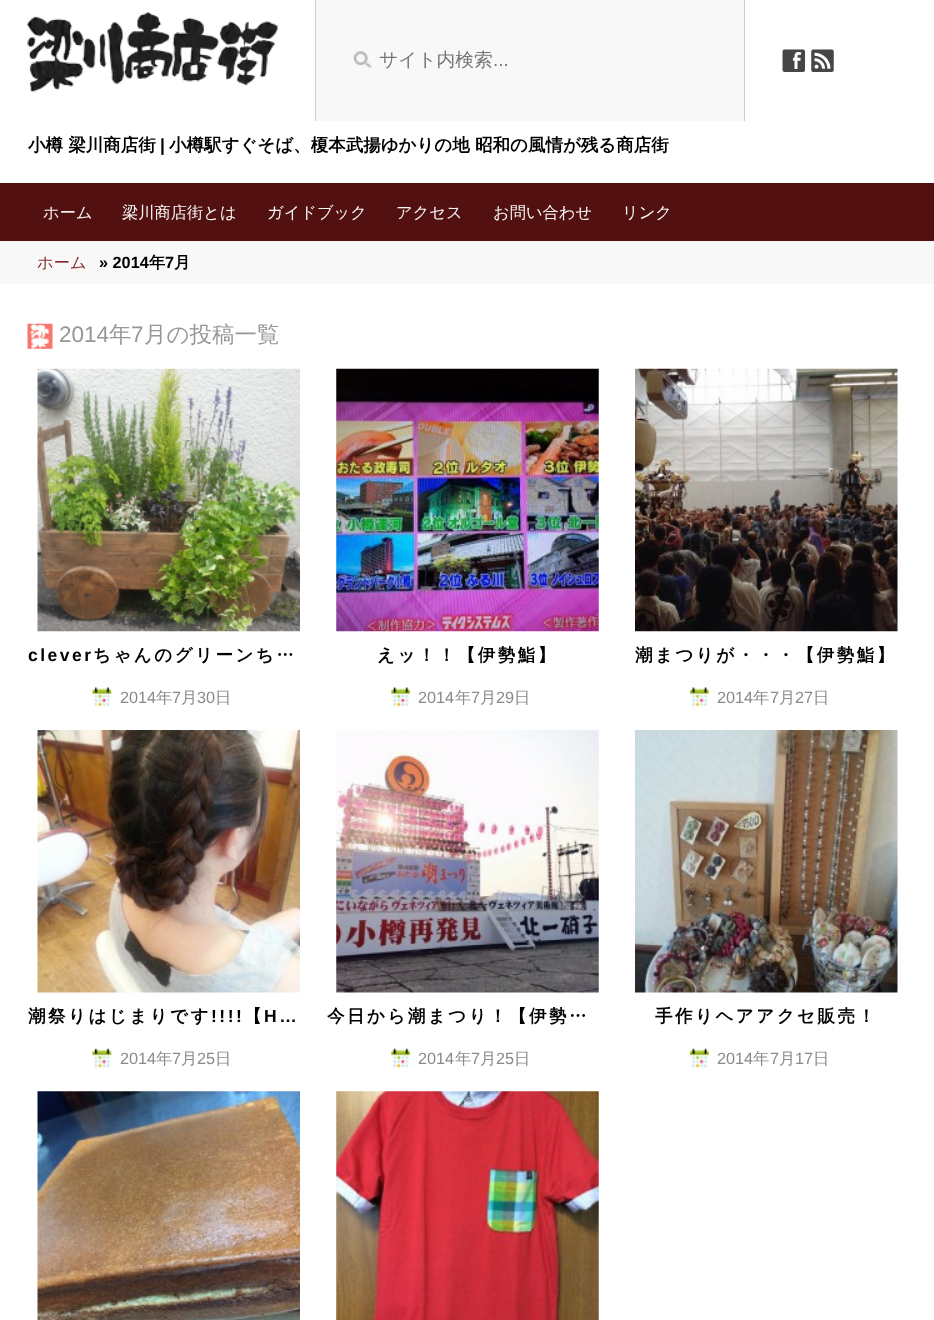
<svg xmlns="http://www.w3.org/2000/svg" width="934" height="1320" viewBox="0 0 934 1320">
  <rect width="100%" height="100%" fill="#ffffff"/>
  <rect x="315" y="0" width="1" height="121" fill="#cccccc"/>
  <image x="27" y="12" width="251" height="80" href="img1.png"/>
  <rect x="316" y="0" width="428" height="121" fill="#f8f8f8"/>
  <rect x="744" y="0" width="1" height="121" fill="#cccccc"/>
  <image x="353" y="51" width="19" height="17" href="img2.png"/>
  <text x="379" y="66" font-family="WenQuanYi Zen Hei" font-size="18.75" font-weight="500" fill="#757575">サイト内検索</text>
  <text x="493" y="66" font-family="Liberation Sans" font-size="18.75" fill="#757575">...</text>
  <image x="782" y="49" width="24" height="23" href="img3.png"/>
  <image x="811" y="49" width="23" height="23" href="img4.png"/>
  <text x="28" y="151" font-family="WenQuanYi Zen Hei" font-size="17.5" font-weight="bold" fill="#000000">小樽 梁川商店街</text>
  <text x="160" y="151" font-family="Liberation Sans" font-size="17.5" font-weight="bold" fill="#000000">|</text>
  <text x="169" y="151" font-family="WenQuanYi Zen Hei" font-size="17.5" font-weight="bold" fill="#000000">小樽駅すぐそば、榎本武揚ゆかりの地 昭和の風情が残る商店街</text>
  <rect x="0" y="183" width="934" height="58" fill="#521010"/>
  <text x="43" y="218" font-family="WenQuanYi Zen Hei" font-size="16.25" font-weight="500" fill="#f8f8f8">ホーム</text>
  <text x="122" y="218" font-family="WenQuanYi Zen Hei" font-size="16.25" font-weight="500" fill="#f8f8f8">梁川商店街とは</text>
  <text x="267" y="218" font-family="WenQuanYi Zen Hei" font-size="16.25" font-weight="500" fill="#f8f8f8">ガイドブック</text>
  <text x="396" y="218" font-family="WenQuanYi Zen Hei" font-size="16.25" font-weight="500" fill="#f8f8f8">アクセス</text>
  <text x="493" y="218" font-family="WenQuanYi Zen Hei" font-size="16.25" font-weight="500" fill="#f8f8f8">お問い合わせ</text>
  <text x="622" y="218" font-family="WenQuanYi Zen Hei" font-size="16.25" font-weight="500" fill="#f8f8f8">リンク</text>
  <rect x="0" y="241" width="934" height="43" fill="#f8f8f8"/>
  <text x="37" y="268" font-family="WenQuanYi Zen Hei" font-size="16.25" font-weight="500" fill="#862a2a">ホーム</text>
  <text x="99" y="268" font-family="Liberation Sans" font-size="16.25" font-weight="bold" fill="#000000">» 2014</text>
  <text x="149" y="268" font-family="WenQuanYi Zen Hei" font-size="16.25" font-weight="bold" fill="#000000">年</text>
  <text x="165" y="268" font-family="Liberation Sans" font-size="16.25" font-weight="bold" fill="#000000">7</text>
  <text x="174" y="268" font-family="WenQuanYi Zen Hei" font-size="16.25" font-weight="bold" fill="#000000">月</text>
  <image x="27" y="323" width="26" height="26" href="img5.png"/>
  <text x="59" y="342" font-family="Liberation Sans" font-size="22.5" fill="#979797">2014</text>
  <text x="109" y="342" font-family="WenQuanYi Zen Hei" font-size="22.5" font-weight="500" fill="#979797">年</text>
  <text x="131" y="342" font-family="Liberation Sans" font-size="22.5" fill="#979797">7</text>
  <text x="144" y="342" font-family="WenQuanYi Zen Hei" font-size="22.5" font-weight="500" fill="#979797">月の投稿一覧</text>
  <image x="37" y="368" width="263" height="264" href="img6.png"/>
  <text x="28" y="661" font-family="Liberation Sans" font-size="17.5" font-weight="bold" letter-spacing="2.5" fill="#000000">clever</text>
  <text x="93" y="661" font-family="WenQuanYi Zen Hei" font-size="17.5" font-weight="bold" letter-spacing="2.5" fill="#000000">ちゃんのグリーンち…</text>
  <image x="92" y="687" width="20" height="20" href="img7.png"/>
  <text x="120" y="703" font-family="Liberation Sans" font-size="16.25" fill="#8a8a8a">2014</text>
  <text x="156" y="703" font-family="WenQuanYi Zen Hei" font-size="16.25" font-weight="500" fill="#8a8a8a">年</text>
  <text x="172" y="703" font-family="Liberation Sans" font-size="16.25" fill="#8a8a8a">7</text>
  <text x="181" y="703" font-family="WenQuanYi Zen Hei" font-size="16.25" font-weight="500" fill="#8a8a8a">月</text>
  <text x="197" y="703" font-family="Liberation Sans" font-size="16.25" fill="#8a8a8a">30</text>
  <text x="215" y="703" font-family="WenQuanYi Zen Hei" font-size="16.25" font-weight="500" fill="#8a8a8a">日</text>
  <image x="336" y="368" width="263" height="264" href="img8.png"/>
  <text x="377" y="661" font-family="WenQuanYi Zen Hei" font-size="17.5" font-weight="bold" letter-spacing="2.5" fill="#000000">えッ！！【伊勢鮨】</text>
  <image x="391" y="687" width="19" height="20" href="img9.png"/>
  <text x="418" y="703" font-family="Liberation Sans" font-size="16.25" fill="#8a8a8a">2014</text>
  <text x="455" y="703" font-family="WenQuanYi Zen Hei" font-size="16.25" font-weight="500" fill="#8a8a8a">年</text>
  <text x="471" y="703" font-family="Liberation Sans" font-size="16.25" fill="#8a8a8a">7</text>
  <text x="480" y="703" font-family="WenQuanYi Zen Hei" font-size="16.25" font-weight="500" fill="#8a8a8a">月</text>
  <text x="496" y="703" font-family="Liberation Sans" font-size="16.25" fill="#8a8a8a">29</text>
  <text x="514" y="703" font-family="WenQuanYi Zen Hei" font-size="16.25" font-weight="500" fill="#8a8a8a">日</text>
  <image x="635" y="368" width="263" height="264" href="img10.png"/>
  <text x="635" y="661" font-family="WenQuanYi Zen Hei" font-size="17.5" font-weight="bold" letter-spacing="2.5" fill="#000000">潮まつりが・・・【伊勢鮨】</text>
  <image x="690" y="687" width="19" height="20" href="img11.png"/>
  <text x="717" y="703" font-family="Liberation Sans" font-size="16.25" fill="#8a8a8a">2014</text>
  <text x="753" y="703" font-family="WenQuanYi Zen Hei" font-size="16.25" font-weight="500" fill="#8a8a8a">年</text>
  <text x="770" y="703" font-family="Liberation Sans" font-size="16.25" fill="#8a8a8a">7</text>
  <text x="779" y="703" font-family="WenQuanYi Zen Hei" font-size="16.25" font-weight="500" fill="#8a8a8a">月</text>
  <text x="795" y="703" font-family="Liberation Sans" font-size="16.25" fill="#8a8a8a">27</text>
  <text x="813" y="703" font-family="WenQuanYi Zen Hei" font-size="16.25" font-weight="500" fill="#8a8a8a">日</text>
  <image x="37" y="730" width="263" height="263" href="img12.png"/>
  <text x="28" y="1022" font-family="WenQuanYi Zen Hei" font-size="17.5" font-weight="bold" letter-spacing="2.5" fill="#000000">潮祭りはじまりです</text>
  <text x="211" y="1022" font-family="Liberation Sans" font-size="17.5" font-weight="bold" letter-spacing="2.5" fill="#000000">!!!!</text>
  <text x="244" y="1022" font-family="WenQuanYi Zen Hei" font-size="17.5" font-weight="bold" letter-spacing="2.5" fill="#000000">【</text>
  <text x="264" y="1022" font-family="Liberation Sans" font-size="17.5" font-weight="bold" letter-spacing="2.5" fill="#000000">H…</text>
  <image x="92" y="1048" width="20" height="20" href="img13.png"/>
  <text x="120" y="1064" font-family="Liberation Sans" font-size="16.25" fill="#8a8a8a">2014</text>
  <text x="156" y="1064" font-family="WenQuanYi Zen Hei" font-size="16.25" font-weight="500" fill="#8a8a8a">年</text>
  <text x="172" y="1064" font-family="Liberation Sans" font-size="16.25" fill="#8a8a8a">7</text>
  <text x="181" y="1064" font-family="WenQuanYi Zen Hei" font-size="16.25" font-weight="500" fill="#8a8a8a">月</text>
  <text x="197" y="1064" font-family="Liberation Sans" font-size="16.25" fill="#8a8a8a">25</text>
  <text x="215" y="1064" font-family="WenQuanYi Zen Hei" font-size="16.25" font-weight="500" fill="#8a8a8a">日</text>
  <image x="336" y="730" width="263" height="263" href="img14.png"/>
  <text x="327" y="1022" font-family="WenQuanYi Zen Hei" font-size="17.5" font-weight="bold" letter-spacing="2.5" fill="#000000">今日から潮まつり！【伊勢…</text>
  <image x="391" y="1048" width="19" height="20" href="img15.png"/>
  <text x="418" y="1064" font-family="Liberation Sans" font-size="16.25" fill="#8a8a8a">2014</text>
  <text x="455" y="1064" font-family="WenQuanYi Zen Hei" font-size="16.25" font-weight="500" fill="#8a8a8a">年</text>
  <text x="471" y="1064" font-family="Liberation Sans" font-size="16.25" fill="#8a8a8a">7</text>
  <text x="480" y="1064" font-family="WenQuanYi Zen Hei" font-size="16.25" font-weight="500" fill="#8a8a8a">月</text>
  <text x="496" y="1064" font-family="Liberation Sans" font-size="16.25" fill="#8a8a8a">25</text>
  <text x="514" y="1064" font-family="WenQuanYi Zen Hei" font-size="16.25" font-weight="500" fill="#8a8a8a">日</text>
  <image x="635" y="730" width="263" height="263" href="img16.png"/>
  <text x="655" y="1022" font-family="WenQuanYi Zen Hei" font-size="17.5" font-weight="bold" letter-spacing="2.5" fill="#000000">手作りヘアアクセ販売！</text>
  <image x="690" y="1048" width="19" height="20" href="img17.png"/>
  <text x="717" y="1064" font-family="Liberation Sans" font-size="16.25" fill="#8a8a8a">2014</text>
  <text x="753" y="1064" font-family="WenQuanYi Zen Hei" font-size="16.25" font-weight="500" fill="#8a8a8a">年</text>
  <text x="770" y="1064" font-family="Liberation Sans" font-size="16.25" fill="#8a8a8a">7</text>
  <text x="779" y="1064" font-family="WenQuanYi Zen Hei" font-size="16.25" font-weight="500" fill="#8a8a8a">月</text>
  <text x="795" y="1064" font-family="Liberation Sans" font-size="16.25" fill="#8a8a8a">17</text>
  <text x="813" y="1064" font-family="WenQuanYi Zen Hei" font-size="16.25" font-weight="500" fill="#8a8a8a">日</text>
  <image x="37" y="1091" width="263" height="229" href="img18.png"/>
  <image x="336" y="1091" width="263" height="229" href="img19.png"/>
</svg>
